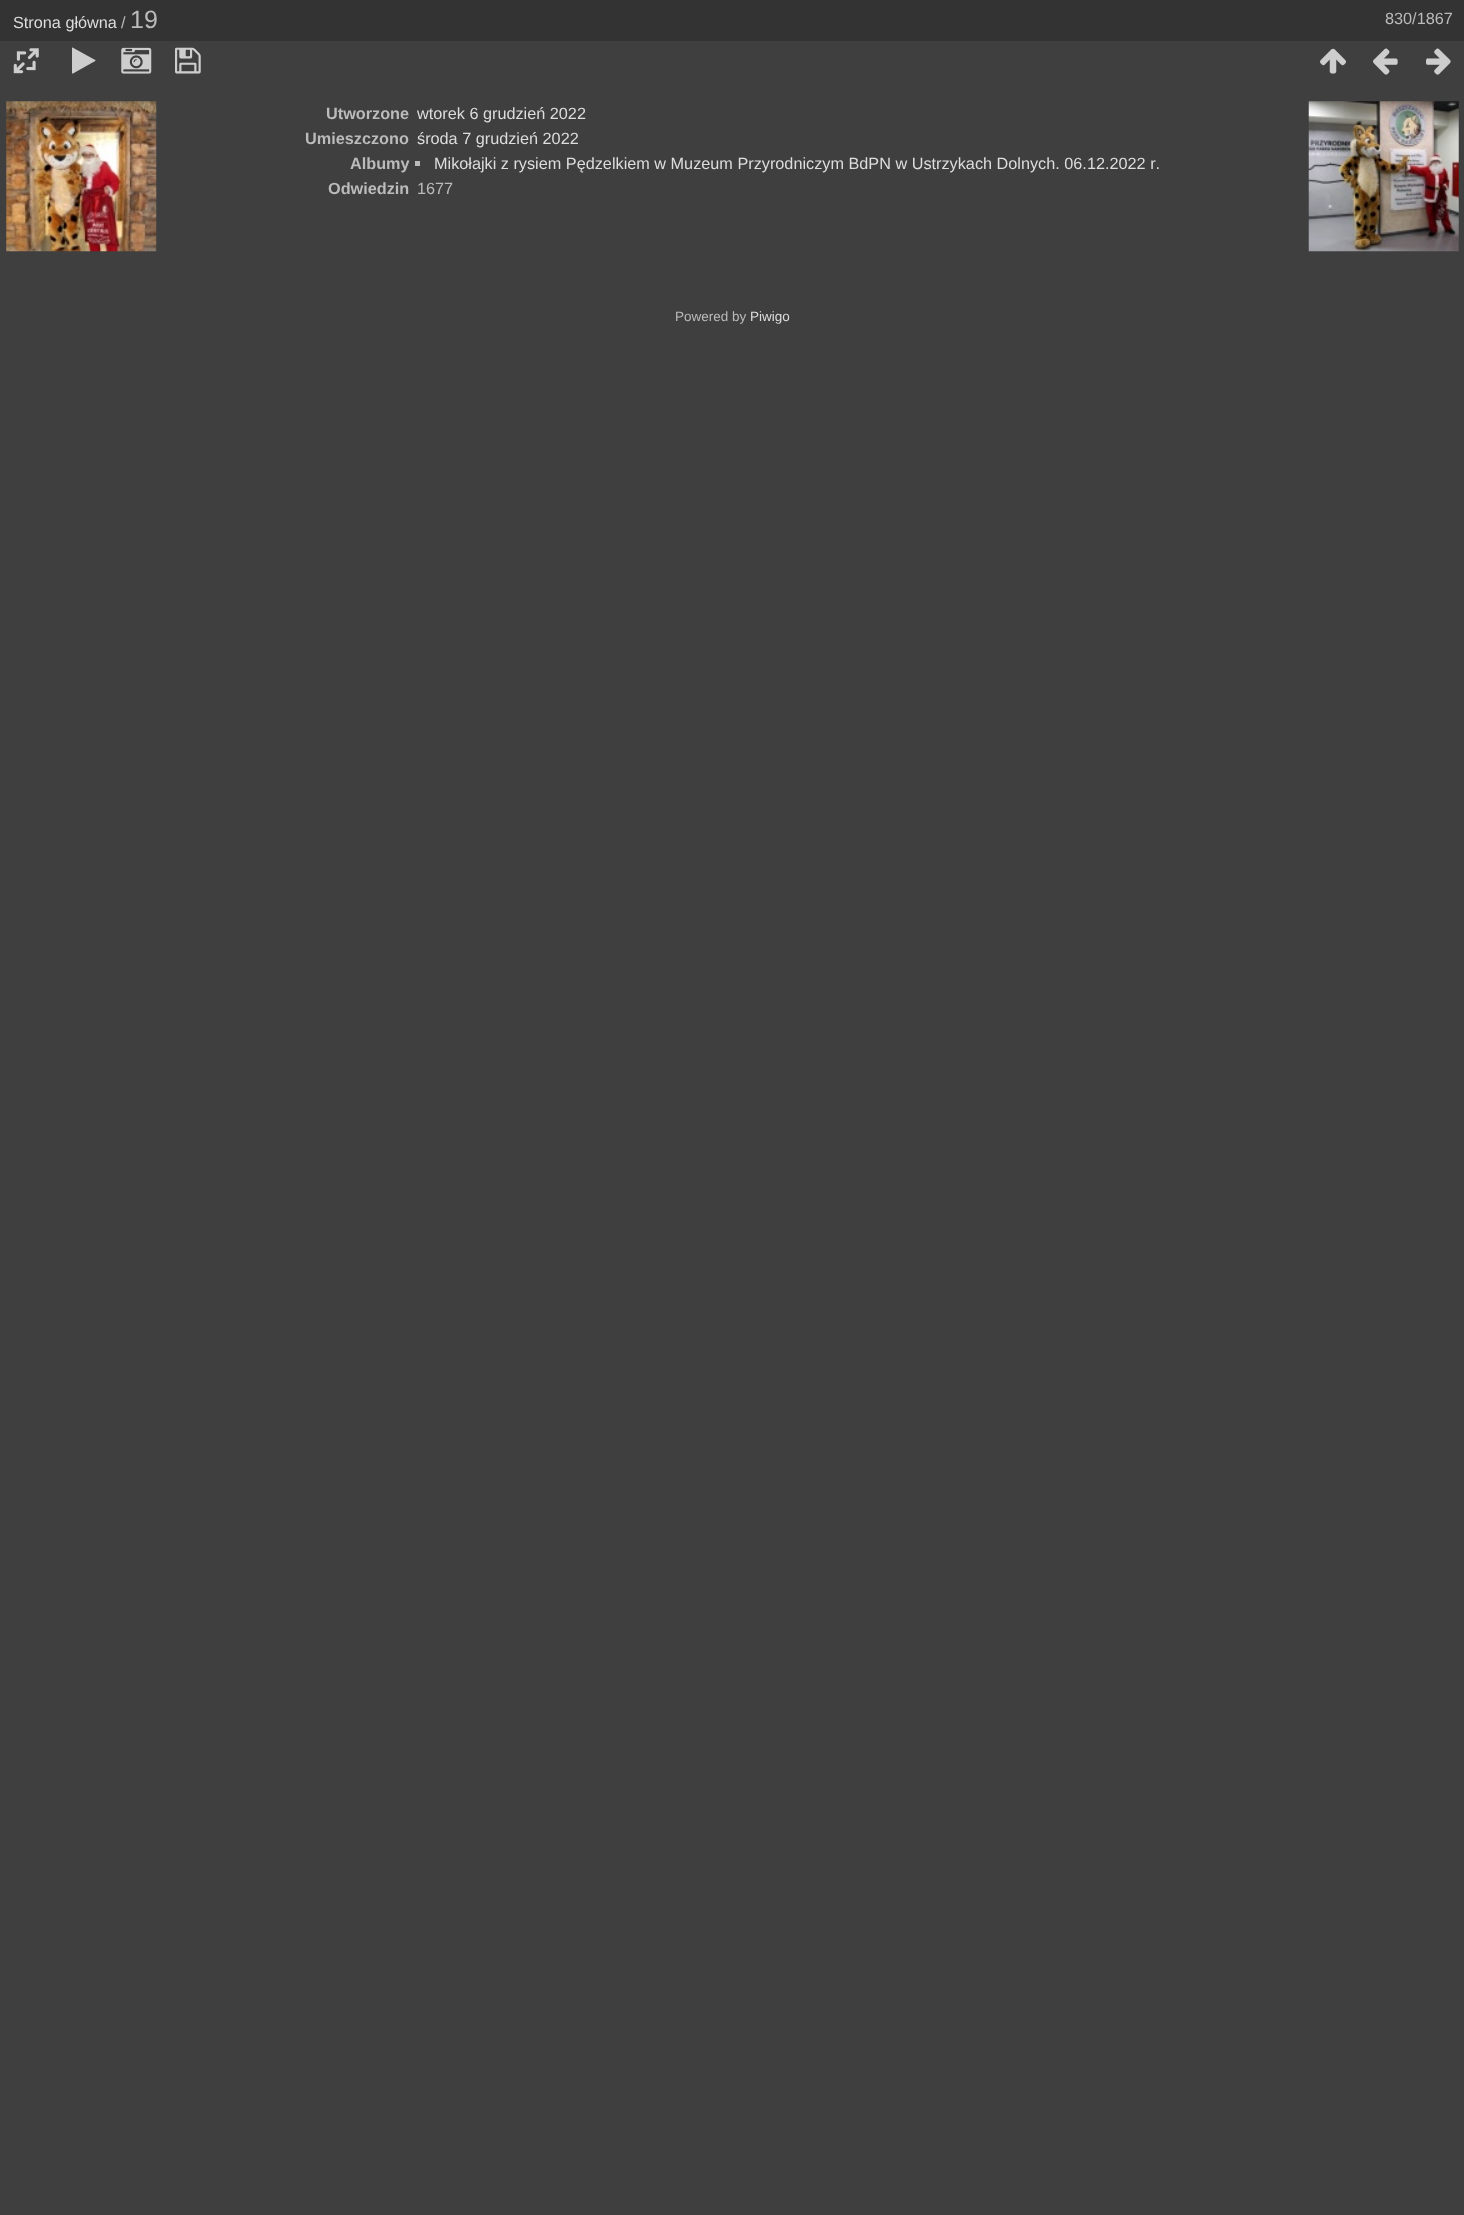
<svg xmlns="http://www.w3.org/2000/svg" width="1464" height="2215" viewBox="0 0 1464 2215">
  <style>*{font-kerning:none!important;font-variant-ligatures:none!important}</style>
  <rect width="100%" height="100%" fill="#3f3f3f"/>
  <rect x="0" y="0" width="1464" height="41" fill="#333333"/>
  <text x="13" y="28" font-family="Liberation Sans" font-size="16.25" fill="#dddddd">Strona główna</text>
  <text x="121" y="28" font-family="Liberation Sans" font-size="16.25" fill="#bbbbbb">/</text>
  <text x="130" y="28" font-family="Liberation Sans" font-size="25" fill="#bbbbbb">19</text>
  <text x="1385" y="24" font-family="Liberation Sans" font-size="16.25" fill="#bbbbbb">830/1867</text>
  <image x="13" y="48" width="26" height="26" href="img1.png"/>
  <text x="72" y="71" font-family="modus" font-size="30" fill="#cdcdcd">▶</text>
  <image x="121" y="47" width="31" height="27" href="img2.png"/>
  <text x="175" y="71" font-family="modus" font-size="30" fill="#cdcdcd">💾</text>
  <text x="1320" y="71" font-family="modus" font-size="30" fill="#cdcdcd">↑</text>
  <text x="1373" y="71" font-family="modus" font-size="30" fill="#cdcdcd">←</text>
  <text x="1426" y="71" font-family="modus" font-size="30" fill="#cdcdcd">→</text>
  <image x="6" y="101" width="151" height="151" href="img3.png"/>
  <image x="1308" y="101" width="151" height="151" href="img4.png"/>
  <text x="326" y="119" font-family="Liberation Sans" font-size="16.25" font-weight="bold" fill="#bbbbbb">Utworzone</text>
  <text x="417" y="119" font-family="Liberation Sans" font-size="16.25" fill="#dddddd">wtorek 6 grudzień 2022</text>
  <text x="305" y="144" font-family="Liberation Sans" font-size="16.25" font-weight="bold" fill="#bbbbbb">Umieszczono</text>
  <text x="417" y="144" font-family="Liberation Sans" font-size="16.25" fill="#dddddd">środa 7 grudzień 2022</text>
  <text x="350" y="169" font-family="Liberation Sans" font-size="16.25" font-weight="bold" fill="#bbbbbb">Albumy</text>
  <rect x="415" y="161" width="5" height="5" fill="#bbbbbb"/>
  <text x="434" y="169" font-family="Liberation Sans" font-size="16.25" fill="#dddddd">Mikołajki z rysiem Pędzelkiem w Muzeum Przyrodniczym BdPN w Ustrzykach Dolnych. 06.12.2022 r.</text>
  <text x="328" y="194" font-family="Liberation Sans" font-size="16.25" font-weight="bold" fill="#bbbbbb">Odwiedzin</text>
  <text x="417" y="194" font-family="Liberation Sans" font-size="16.25" fill="#bbbbbb">1677</text>
  <text x="675" y="321" font-family="Liberation Sans" font-size="13.5" fill="#bbbbbb">Powered by</text>
  <text x="750" y="321" font-family="Liberation Sans" font-size="13.5" fill="#dddddd">Piwigo</text>
</svg>
